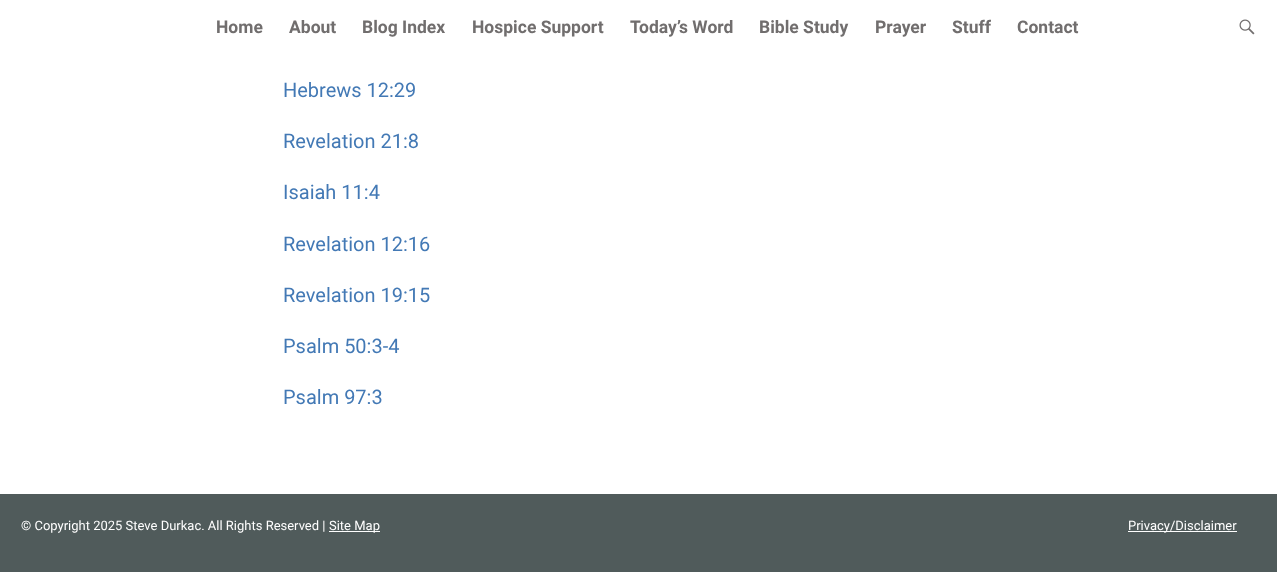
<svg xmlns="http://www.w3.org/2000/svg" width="1277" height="572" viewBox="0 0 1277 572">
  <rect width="100%" height="100%" fill="#ffffff"/>
  <text x="216" y="33" font-family="Roboto" font-size="17.5" font-weight="bold" fill="#716e6e">Home</text>
  <text x="289" y="33" font-family="Roboto" font-size="17.5" font-weight="bold" fill="#716e6e">About</text>
  <text x="362" y="33" font-family="Roboto" font-size="17.5" font-weight="bold" fill="#716e6e">Blog Index</text>
  <text x="472" y="33" font-family="Roboto" font-size="17.5" font-weight="bold" fill="#716e6e">Hospice Support</text>
  <text x="630" y="33" font-family="Roboto" font-size="17.5" font-weight="bold" fill="#716e6e">Today’s Word</text>
  <text x="759" y="33" font-family="Roboto" font-size="17.5" font-weight="bold" fill="#716e6e">Bible Study</text>
  <text x="875" y="33" font-family="Roboto" font-size="17.5" font-weight="bold" fill="#716e6e">Prayer</text>
  <text x="952" y="33" font-family="Roboto" font-size="17.5" font-weight="bold" fill="#716e6e">Stuff</text>
  <text x="1017" y="33" font-family="Roboto" font-size="17.5" font-weight="bold" fill="#716e6e">Contact</text>
  <image x="1239" y="19" width="16" height="16" href="img1.png"/>
  <text x="283" y="97" font-family="Roboto" font-size="20" fill="#4379b5">Hebrews 12:29</text>
  <text x="283" y="148" font-family="Roboto" font-size="20" fill="#4379b5">Revelation 21:8</text>
  <text x="283" y="199" font-family="Roboto" font-size="20" fill="#4379b5">Isaiah 11:4</text>
  <text x="283" y="251" font-family="Roboto" font-size="20" fill="#4379b5">Revelation 12:16</text>
  <text x="283" y="302" font-family="Roboto" font-size="20" fill="#4379b5">Revelation 19:15</text>
  <text x="283" y="353" font-family="Roboto" font-size="20" fill="#4379b5">Psalm 50:3-4</text>
  <text x="283" y="404" font-family="Roboto" font-size="20" fill="#4379b5">Psalm 97:3</text>
  <rect x="0" y="494" width="1277" height="78" fill="#505b5b"/>
  <text x="21" y="530" font-family="Roboto" font-size="13" fill="#ffffff">© Copyright 2025 Steve Durkac. All Rights Reserved |</text>
  <rect x="329" y="531" width="51" height="1" fill="#ffffff"/>
  <text x="329" y="530" font-family="Roboto" font-size="13" fill="#ffffff">Site Map</text>
  <rect x="1128" y="531" width="109" height="1" fill="#ffffff"/>
  <text x="1128" y="530" font-family="Roboto" font-size="13" fill="#ffffff">Privacy/Disclaimer</text>
</svg>
